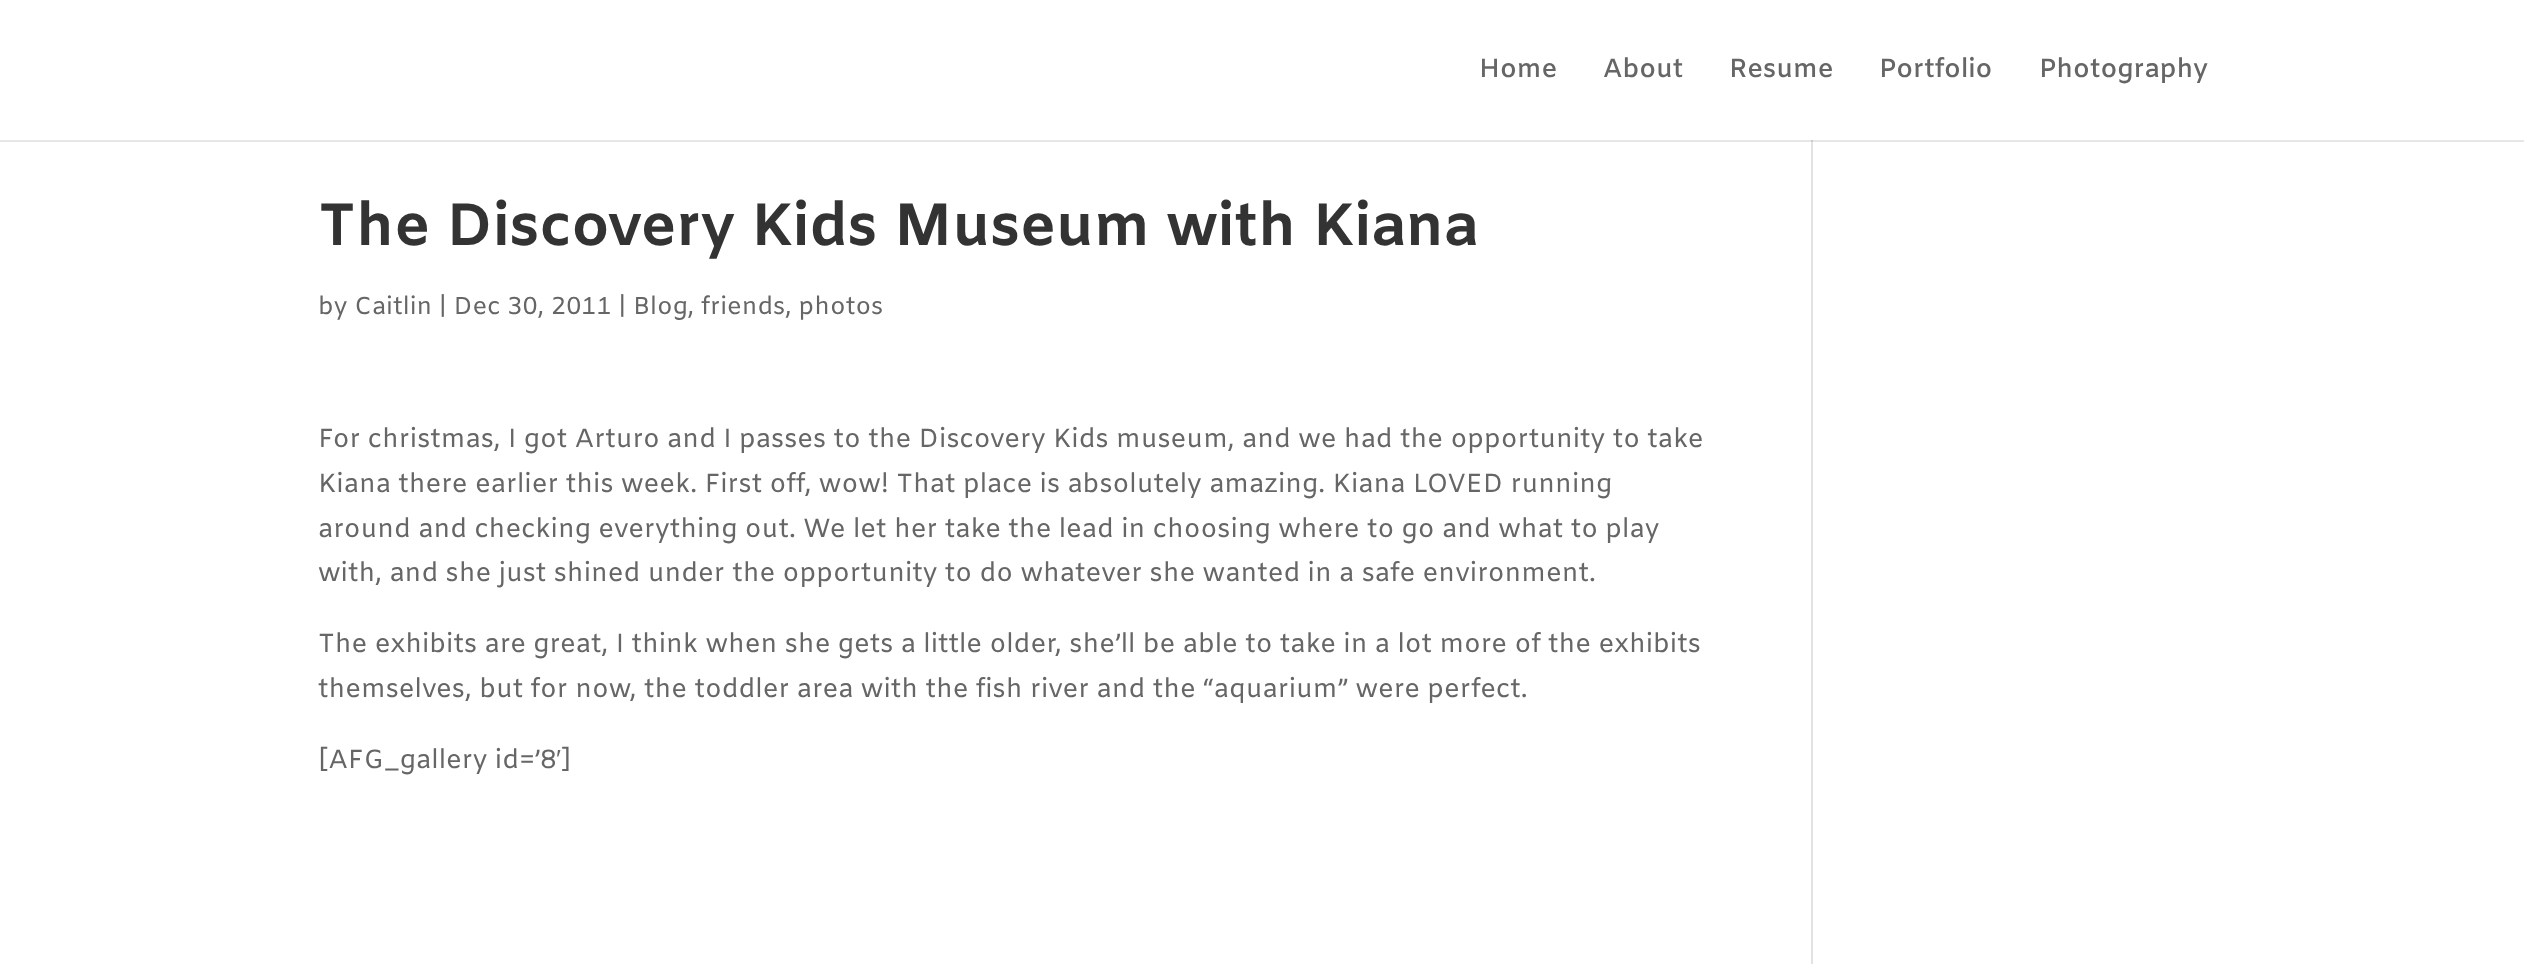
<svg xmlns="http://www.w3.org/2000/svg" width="2524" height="964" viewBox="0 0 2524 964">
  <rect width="100%" height="100%" fill="#ffffff"/>
  <rect x="0" y="140" width="2524" height="2" fill="#e6e6e6"/>
  <text x="1479" y="77" font-family="Amiko" font-size="26.25" font-weight="600" fill="#666666">Home</text>
  <text x="1603" y="77" font-family="Amiko" font-size="26.25" font-weight="600" fill="#666666">About</text>
  <text x="1729" y="77" font-family="Amiko" font-size="26.25" font-weight="600" fill="#666666">Resume</text>
  <text x="1879" y="77" font-family="Amiko" font-size="26.25" font-weight="600" fill="#666666">Portfolio</text>
  <text x="2039" y="77" font-family="Amiko" font-size="26.25" font-weight="600" fill="#666666">Photography</text>
  <text x="318" y="245" font-family="Amiko" font-size="59.5" font-weight="bold" fill="#333333">The Discovery Kids Museum with Kiana</text>
  <text x="318" y="314" font-family="Amiko" font-size="24.5" fill="#666666">by Caitlin | Dec 30, 2011 | Blog, friends, photos</text>
  <text x="318" y="447" font-family="Amiko" font-size="26.25" fill="#666666">For christmas, I got Arturo and I passes to the Discovery Kids museum, and we had the opportunity to take</text>
  <text x="318" y="492" font-family="Amiko" font-size="26.25" fill="#666666">Kiana there earlier this week. First off, wow! That place is absolutely amazing. Kiana LOVED running</text>
  <text x="318" y="537" font-family="Amiko" font-size="26.25" fill="#666666">around and checking everything out. We let her take the lead in choosing where to go and what to play</text>
  <text x="318" y="581" font-family="Amiko" font-size="26.25" fill="#666666">with, and she just shined under the opportunity to do whatever she wanted in a safe environment.</text>
  <text x="318" y="652" font-family="Amiko" font-size="26.25" fill="#666666">The exhibits are great, I think when she gets a little older, she’ll be able to take in a lot more of the exhibits</text>
  <text x="318" y="697" font-family="Amiko" font-size="26.25" fill="#666666">themselves, but for now, the toddler area with the fish river and the “aquarium” were perfect.</text>
  <text x="318" y="768" font-family="Amiko" font-size="26.25" fill="#666666">[AFG_gallery id=’8</text>
  <text x="556" y="768" font-family="Liberation Sans" font-size="26.25" fill="#666666">′</text>
  <text x="561" y="768" font-family="Amiko" font-size="26.25" fill="#666666">]</text>
  <rect x="1811" y="142" width="2" height="822" fill="#e2e2e2"/>
  <rect x="1811" y="140" width="2" height="2" fill="#cbcbcb"/>
</svg>
